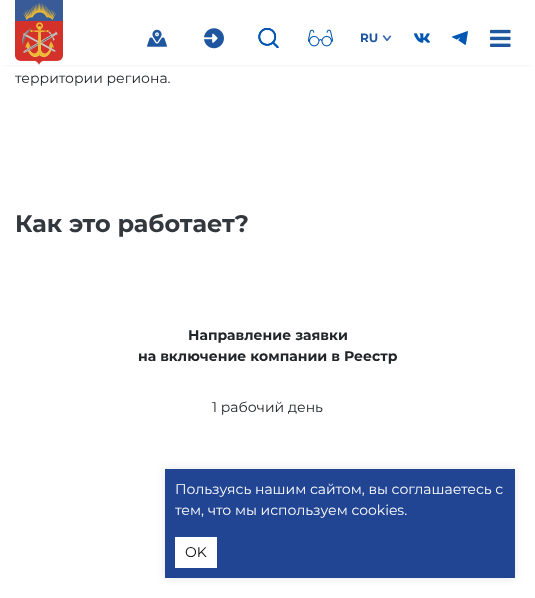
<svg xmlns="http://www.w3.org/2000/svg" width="535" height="598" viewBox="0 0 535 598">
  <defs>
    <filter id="blur1" x="-50%" y="-200%" width="200%" height="500%"><feGaussianBlur stdDeviation="2.5"/></filter>
    <filter id="blur2" x="-50%" y="-200%" width="200%" height="500%"><feGaussianBlur stdDeviation="5"/></filter>
  </defs>
  <rect width="100%" height="100%" fill="#ffffff"/>
  <rect x="4" y="4" width="527" height="57" fill="#000000" filter="url(#blur1)"/>
  <rect x="0" y="0" width="535" height="65" fill="#ffffff"/>
  <image x="15" y="0" width="48" height="65" href="img1.png"/>
  <image x="147" y="29" width="20" height="18" href="img2.png"/>
  <image x="204" y="28" width="20" height="21" href="img3.png"/>
  <image x="258" y="28" width="21" height="20" href="img4.png"/>
  <image x="308" y="29" width="25" height="18" href="img5.png"/>
  <text x="360" y="42" font-family="Montserrat" font-size="12" font-weight="bold" fill="#1e56a0">RU</text>
  <image x="382" y="35" width="10" height="6" href="img6.png"/>
  <image x="414" y="33" width="16" height="10" href="img7.png"/>
  <image x="452" y="31" width="16" height="14" href="img8.png"/>
  <image x="490" y="29" width="21" height="18" href="img9.png"/>
  <text x="15" y="83" font-family="Montserrat" font-size="14" fill="#212529">территории региона.</text>
  <text x="15" y="232" font-family="Montserrat" font-size="24" font-weight="bold" fill="#33383f">Как это работает?</text>
  <text x="188" y="340" font-family="Montserrat" font-size="14" font-weight="bold" fill="#212529">Направление заявки</text>
  <text x="138" y="361" font-family="Montserrat" font-size="14" font-weight="bold" fill="#212529">на включение компании в Реестр</text>
  <text x="212" y="412" font-family="Montserrat" font-size="14" fill="#212529">1 рабочий день</text>
  <rect x="165" y="469" width="350" height="109" fill="#000000" fill-opacity="0.1" filter="url(#blur2)"/>
  <rect x="165" y="469" width="350" height="109" fill="#214593"/>
  <text x="175" y="494" font-family="Montserrat" font-size="14" fill="#ffffff">Пользуясь нашим сайтом, вы соглашаетесь с</text>
  <text x="175" y="515" font-family="Montserrat" font-size="14" fill="#ffffff">тем, что мы используем cookies.</text>
  <rect x="175" y="537" width="42" height="31" fill="#ffffff"/>
  <text x="185" y="557" font-family="Montserrat" font-size="14" fill="#000000">OK</text>
</svg>
